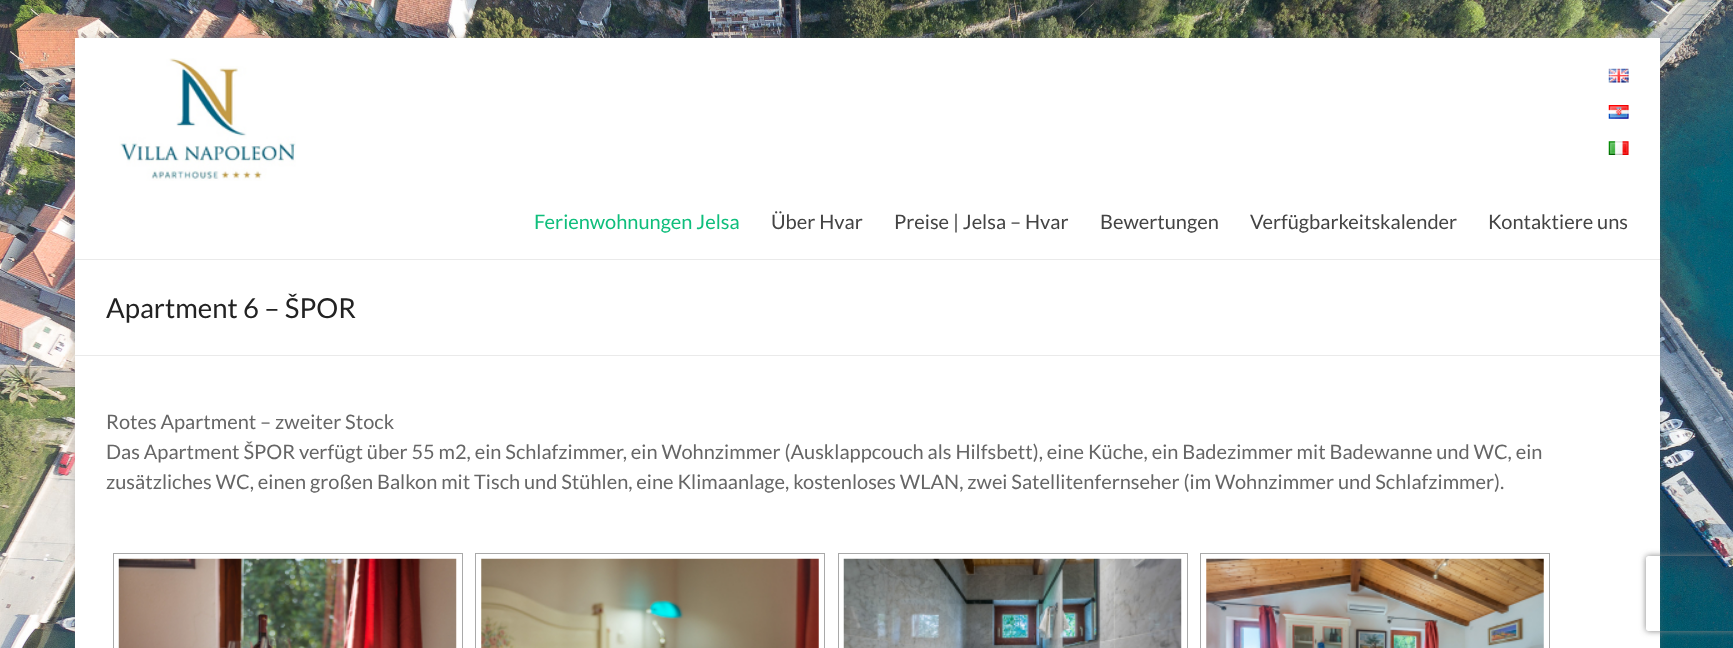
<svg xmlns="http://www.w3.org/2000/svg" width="1733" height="648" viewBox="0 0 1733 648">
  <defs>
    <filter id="blur1" x="-50%" y="-200%" width="200%" height="500%"><feGaussianBlur stdDeviation="4"/></filter>
    <clipPath id="clip1"><path d="M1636 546H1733V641H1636ZM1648.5 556H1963.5C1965 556 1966 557 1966 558.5V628.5C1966 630 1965 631 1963.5 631H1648.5C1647 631 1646 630 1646 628.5V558.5C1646 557 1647 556 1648.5 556Z" clip-rule="evenodd"/></clipPath>
    <filter id="blur2" x="-50%" y="-200%" width="200%" height="500%"><feGaussianBlur stdDeviation="3"/></filter>
  </defs>
  <rect width="100%" height="100%" fill="#ffffff"/>
  <image x="0" y="0" width="1733" height="648" href="img1.png"/>
  <rect x="75" y="40" width="1585" height="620" fill="#646464" fill-opacity="0.3" filter="url(#blur1)"/>
  <rect x="75" y="38" width="1585" height="610" fill="#ffffff"/>
  <rect x="75" y="259" width="1585" height="1" fill="#eaeaea"/>
  <image x="119" y="58" width="177" height="123" href="img2.png"/>
  <image x="1608" y="68" width="21" height="15" href="img3.png"/>
  <image x="1608" y="105" width="21" height="14" href="img4.png"/>
  <image x="1608" y="141" width="21" height="14" href="img5.png"/>
  <text x="534" y="229" font-family="Lato" font-size="20" fill="#0fbe7c">Ferienwohnungen Jelsa</text>
  <text x="771" y="229" font-family="Lato" font-size="20" fill="#444444">Über Hvar</text>
  <text x="894" y="229" font-family="Lato" font-size="20" fill="#444444">Preise | Jelsa – Hvar</text>
  <text x="1100" y="229" font-family="Lato" font-size="20" fill="#444444">Bewertungen</text>
  <text x="1250" y="229" font-family="Lato" font-size="20" fill="#444444">Verfügbarkeitskalender</text>
  <text x="1488" y="229" font-family="Lato" font-size="20" fill="#444444">Kontaktiere uns</text>
  <rect x="75" y="355" width="1585" height="1" fill="#eaeaea"/>
  <text x="106" y="318" font-family="Lato" font-size="27.5" fill="#222222">Apartment 6 – ŠPOR</text>
  <text x="106" y="429" font-family="Lato" font-size="20" fill="#666666">Rotes Apartment – zweiter Stock</text>
  <text x="106" y="459" font-family="Lato" font-size="20" fill="#666666">Das Apartment ŠPOR verfügt über 55 m2, ein Schlafzimmer, ein Wohnzimmer (Ausklappcouch als Hilfsbett), eine Küche, ein Badezimmer mit Badewanne und WC, ein</text>
  <text x="106" y="489" font-family="Lato" font-size="20" fill="#666666">zusätzliches WC, einen großen Balkon mit Tisch und Stühlen, eine Klimaanlage, kostenloses WLAN, zwei Satellitenfernseher (im Wohnzimmer und Schlafzimmer).</text>
  <rect x="113.5" y="553.5" width="349" height="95" fill="none" stroke="#a9a9a9"/>
  <image x="118" y="558" width="339" height="90" href="img6.png"/>
  <rect x="475.5" y="553.5" width="349" height="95" fill="none" stroke="#a9a9a9"/>
  <image x="481" y="558" width="338" height="90" href="img7.png"/>
  <rect x="838.5" y="553.5" width="349" height="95" fill="none" stroke="#a9a9a9"/>
  <image x="843" y="558" width="339" height="90" href="img8.png"/>
  <rect x="1200.5" y="553.5" width="349" height="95" fill="none" stroke="#a9a9a9"/>
  <image x="1206" y="558" width="338" height="90" href="img9.png"/>
  <g clip-path="url(#clip1)">
    <rect x="1646" y="556" width="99" height="75" rx="2.5" fill="#808080" filter="url(#blur2)"/>
  </g>
</svg>
